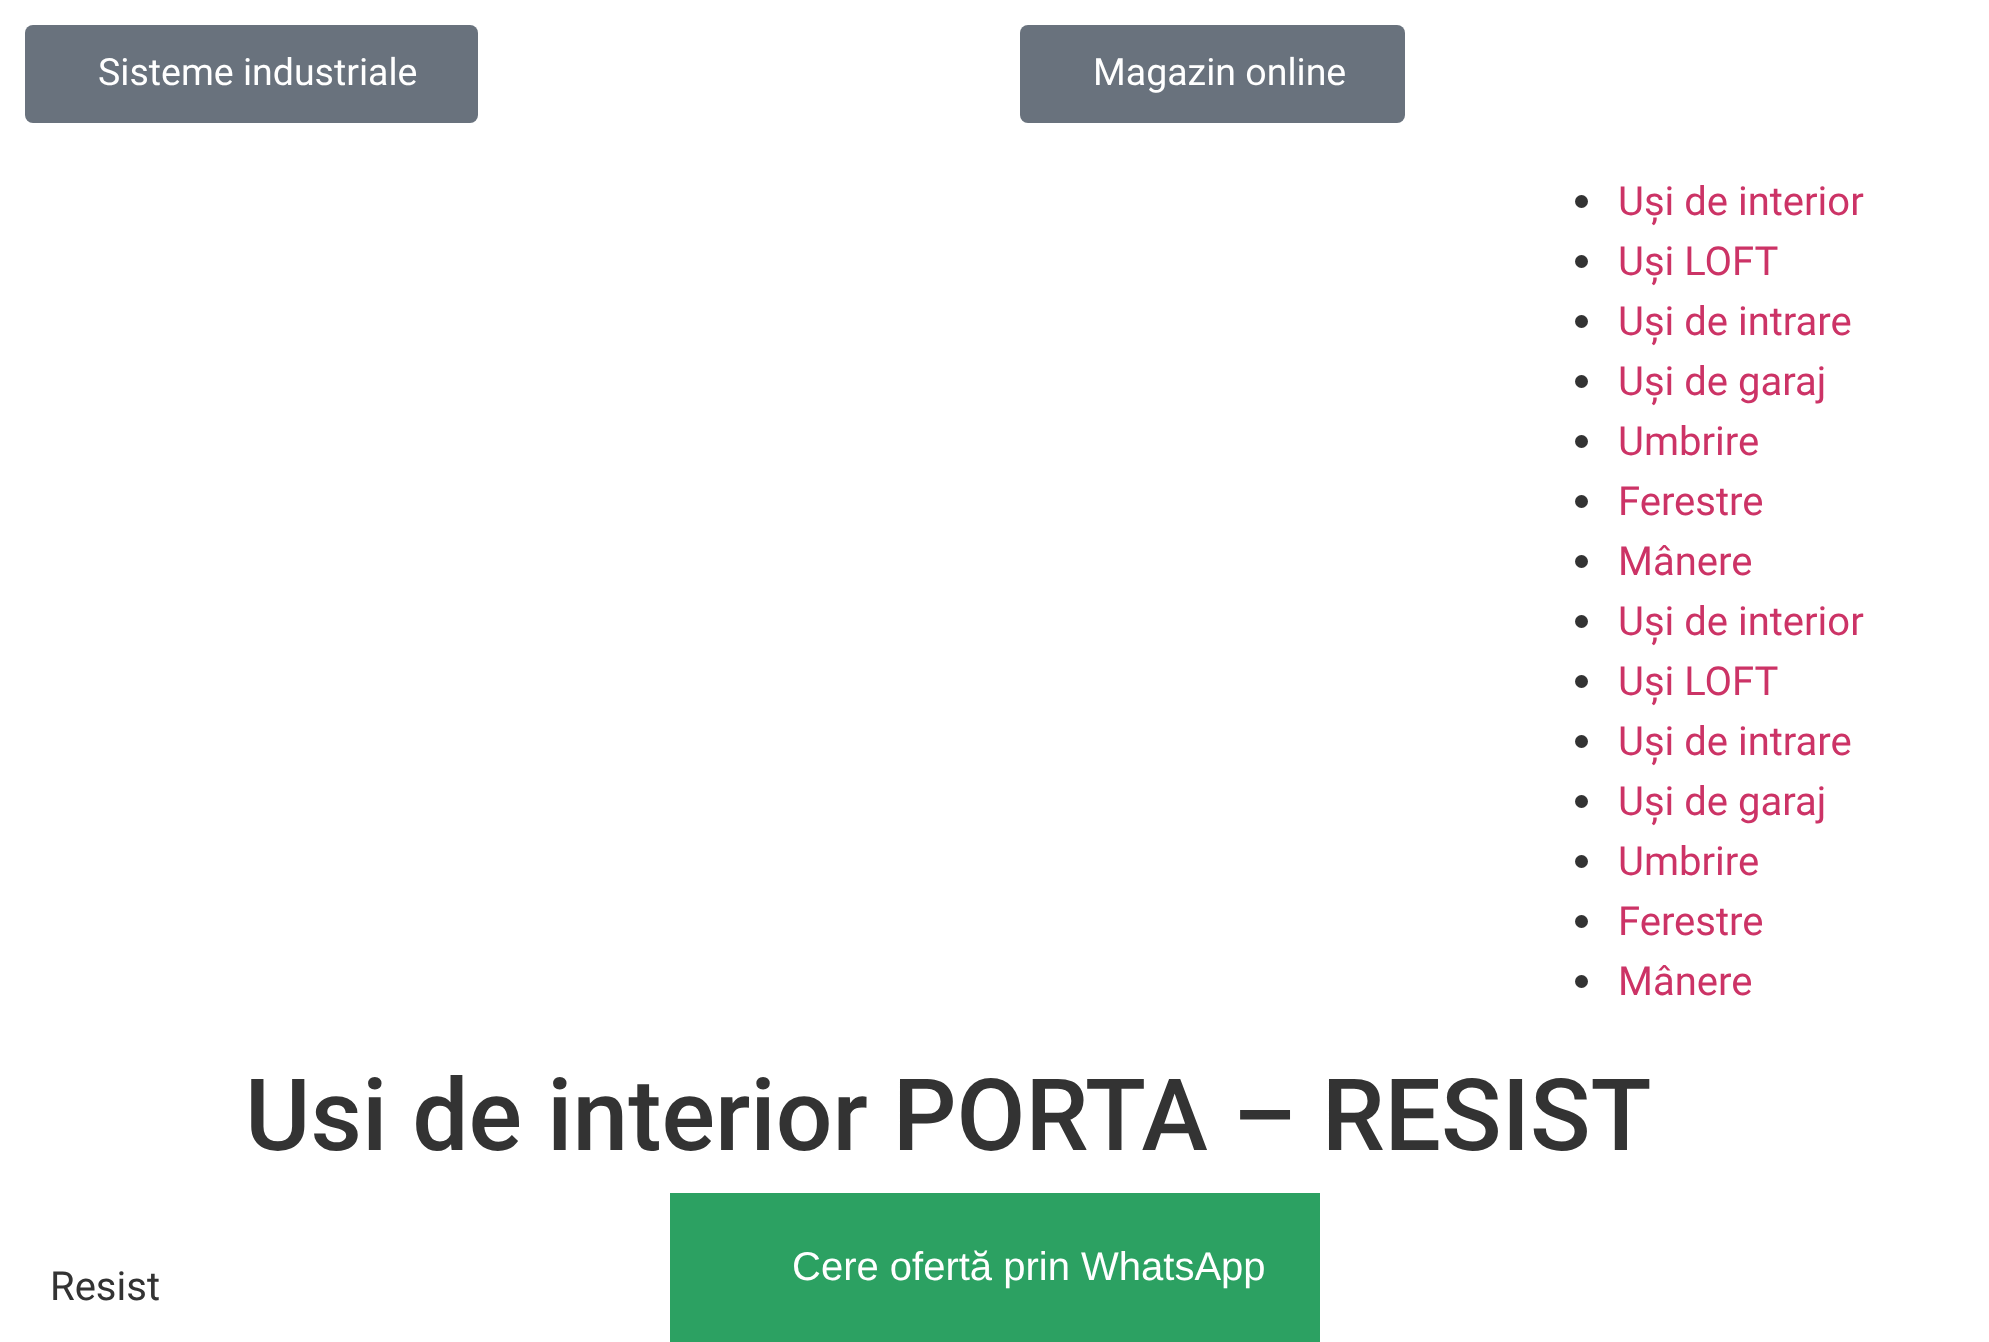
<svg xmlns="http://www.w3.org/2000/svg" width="1989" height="1342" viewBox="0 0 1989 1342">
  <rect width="100%" height="100%" fill="#ffffff"/>
  <rect x="25" y="25" width="453" height="98" rx="8" fill="#69727d"/>
  <text x="98" y="85" font-family="Roboto" font-size="37.5" fill="#ffffff">Sisteme industriale</text>
  <rect x="1020" y="25" width="385" height="98" rx="8" fill="#69727d"/>
  <text x="1093" y="85" font-family="Roboto" font-size="37.5" fill="#ffffff">Magazin online</text>
  <circle cx="1581.5" cy="201.5" r="6.5" fill="#333333"/>
  <text x="1618" y="215" font-family="Roboto" font-size="40" fill="#cc3366">Uși de interior</text>
  <circle cx="1581.5" cy="261.5" r="6.5" fill="#333333"/>
  <text x="1618" y="275" font-family="Roboto" font-size="40" fill="#cc3366">Uși LOFT</text>
  <circle cx="1581.5" cy="321.5" r="6.5" fill="#333333"/>
  <text x="1618" y="335" font-family="Roboto" font-size="40" fill="#cc3366">Uși de intrare</text>
  <circle cx="1581.5" cy="381.5" r="6.5" fill="#333333"/>
  <text x="1618" y="395" font-family="Roboto" font-size="40" fill="#cc3366">Uși de garaj</text>
  <circle cx="1581.5" cy="441.5" r="6.5" fill="#333333"/>
  <text x="1618" y="455" font-family="Roboto" font-size="40" fill="#cc3366">Umbrire</text>
  <circle cx="1581.5" cy="501.5" r="6.5" fill="#333333"/>
  <text x="1618" y="515" font-family="Roboto" font-size="40" fill="#cc3366">Ferestre</text>
  <circle cx="1581.5" cy="561.5" r="6.5" fill="#333333"/>
  <text x="1618" y="575" font-family="Roboto" font-size="40" fill="#cc3366">Mânere</text>
  <circle cx="1581.5" cy="621.5" r="6.5" fill="#333333"/>
  <text x="1618" y="635" font-family="Roboto" font-size="40" fill="#cc3366">Uși de interior</text>
  <circle cx="1581.5" cy="681.5" r="6.5" fill="#333333"/>
  <text x="1618" y="695" font-family="Roboto" font-size="40" fill="#cc3366">Uși LOFT</text>
  <circle cx="1581.5" cy="741.5" r="6.5" fill="#333333"/>
  <text x="1618" y="755" font-family="Roboto" font-size="40" fill="#cc3366">Uși de intrare</text>
  <circle cx="1581.5" cy="801.5" r="6.5" fill="#333333"/>
  <text x="1618" y="815" font-family="Roboto" font-size="40" fill="#cc3366">Uși de garaj</text>
  <circle cx="1581.5" cy="861.5" r="6.5" fill="#333333"/>
  <text x="1618" y="875" font-family="Roboto" font-size="40" fill="#cc3366">Umbrire</text>
  <circle cx="1581.5" cy="921.5" r="6.5" fill="#333333"/>
  <text x="1618" y="935" font-family="Roboto" font-size="40" fill="#cc3366">Ferestre</text>
  <circle cx="1581.5" cy="981.5" r="6.5" fill="#333333"/>
  <text x="1618" y="995" font-family="Roboto" font-size="40" fill="#cc3366">Mânere</text>
  <text x="245" y="1150" font-family="Roboto" font-size="100" font-weight="500" fill="#333333">Usi de interior PORTA – RESIST</text>
  <text x="50" y="1300" font-family="Roboto" font-size="40" fill="#333333">Resist</text>
  <rect x="670" y="1193" width="650" height="149" fill="#2ca162"/>
  <text x="792" y="1280" font-family="Liberation Sans" font-size="40" fill="#ffffff">Cere ofertă prin WhatsApp</text>
</svg>
